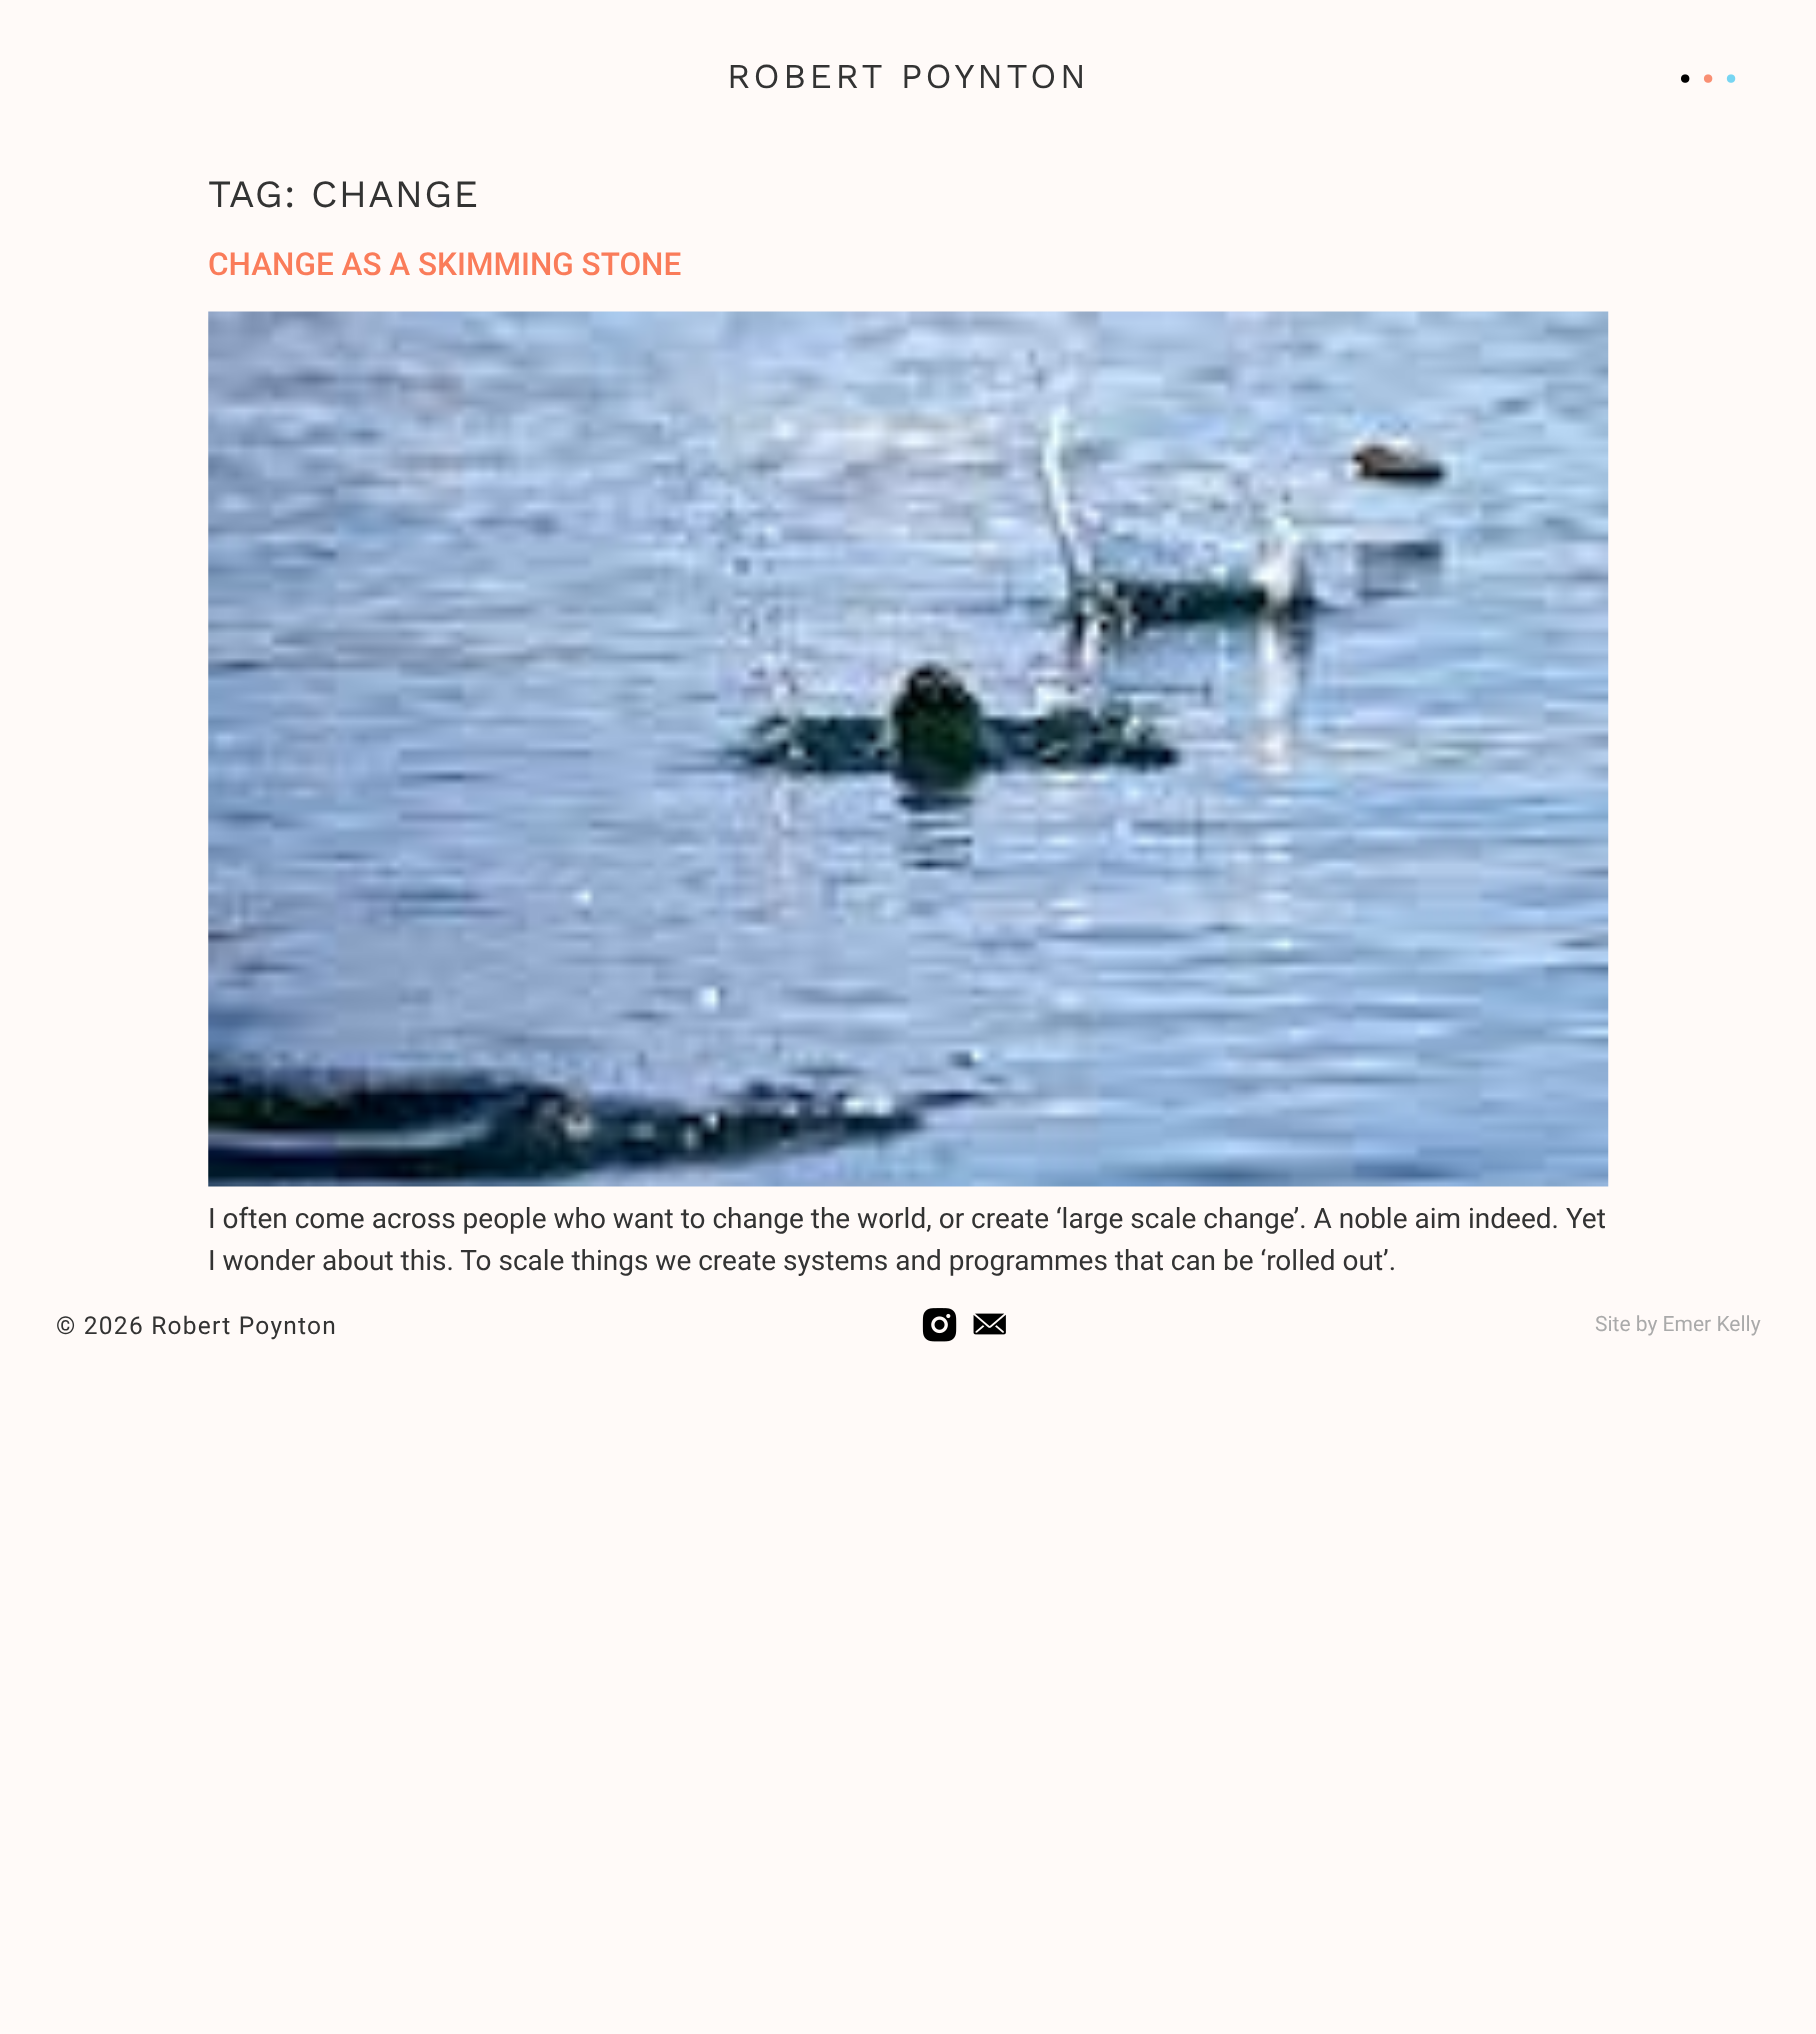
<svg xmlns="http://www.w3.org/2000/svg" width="1816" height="2034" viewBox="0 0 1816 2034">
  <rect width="100%" height="100%" fill="#fffaf8"/>
  <text x="727" y="88" font-family="Work Sans" font-size="35" letter-spacing="3.5" fill="#333333">ROBERT POYNTON</text>
  <image x="1681" y="74" width="55" height="9" href="img1.png"/>
  <text x="208" y="207" font-family="Work Sans" font-size="38.5" letter-spacing="1.25" fill="#333333">TAG: CHANGE</text>
  <text x="208" y="275" font-family="Roboto" font-size="31.5" font-weight="500" fill="#fa7c5a">CHANGE AS A SKIMMING STONE</text>
  <image x="208" y="311" width="1401" height="876" href="img2.png"/>
  <text x="208" y="1228" font-family="Roboto" font-size="28" fill="#333333">I often come across people who want to change the world, or create ‘large scale change’. A noble aim indeed. Yet</text>
  <text x="208" y="1270" font-family="Roboto" font-size="28" fill="#333333">I wonder about this. To scale things we create systems and programmes that can be ‘rolled out’.</text>
  <text x="56" y="1334" font-family="Roboto" font-size="24.5" letter-spacing="1.25" fill="#333333">© 2026 Robert Poynton</text>
  <image x="922" y="1308" width="35" height="34" href="img3.png"/>
  <image x="973" y="1313" width="33" height="22" href="img4.png"/>
  <text x="1595" y="1331" font-family="Roboto" font-size="21" fill="#aaaaaa">Site by Emer Kelly</text>
</svg>
